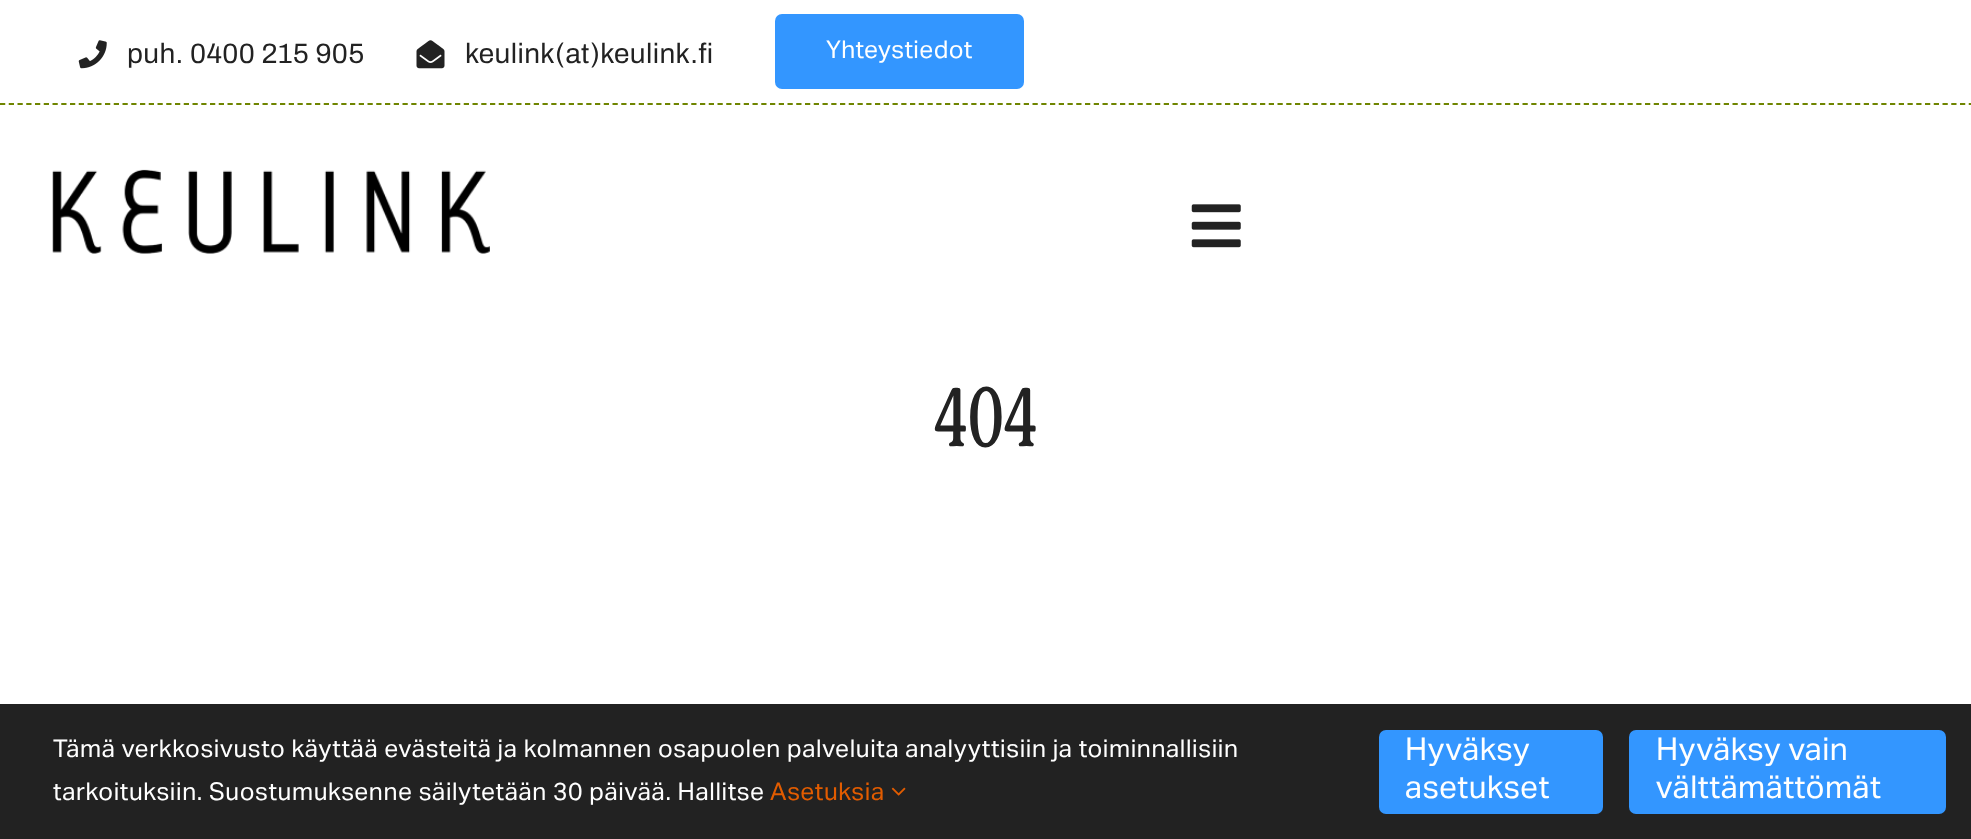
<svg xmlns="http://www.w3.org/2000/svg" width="1971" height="839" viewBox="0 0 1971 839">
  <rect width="100%" height="100%" fill="#ffffff"/>
  <path d="M0 104H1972" fill="none" stroke="#6f8500" stroke-width="1.8" stroke-dasharray="5.25 3.5"/>
  <image x="78" y="40" width="29" height="29" href="img1.png"/>
  <text x="127" y="63" font-family="Archivo" font-size="28" font-weight="600" letter-spacing="0.4" fill="#222222">puh. 0400 215 905</text>
  <image x="416" y="40" width="29" height="29" href="img2.png"/>
  <text x="465" y="63" font-family="Archivo" font-size="28" font-weight="600" letter-spacing="0.4" fill="#222222">keulink(at)keulink.fi</text>
  <rect x="775" y="14" width="249" height="75" rx="7" fill="#3396ff"/>
  <text x="826" y="58" font-family="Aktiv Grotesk" font-size="24.5" letter-spacing="0.4" fill="#ffffff">Yhteystiedot</text>
  <image x="52" y="169" width="438" height="85" href="img3.png"/>
  <image x="1191" y="204" width="50" height="44" href="img4.png"/>
  <text x="934" y="446" font-family="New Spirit" font-size="82" letter-spacing="-1" fill="#222222">404</text>
  <rect x="0" y="704" width="1971" height="135" fill="#222222"/>
  <text x="53" y="757" font-family="Aktiv Grotesk" font-size="24.5" letter-spacing="0.63" fill="#ffffff">Tämä verkkosivusto käyttää evästeitä ja kolmannen osapuolen palveluita analyyttisiin ja toiminnallisiin</text>
  <text x="53" y="800" font-family="Aktiv Grotesk" font-size="24.5" letter-spacing="0.63" fill="#ffffff">tarkoituksiin. Suostumuksenne säilytetään 30 päivää. Hallitse</text>
  <text x="770" y="800" font-family="Aktiv Grotesk" font-size="24.5" letter-spacing="0.63" fill="#e25c00">Asetuksia</text>
  <image x="891" y="787" width="15" height="9" href="img5.png"/>
  <rect x="1379" y="730" width="224" height="84" rx="7" fill="#3396ff"/>
  <text x="1405" y="760" font-family="Aktiv Grotesk" font-size="31.5" letter-spacing="0.5" fill="#ffffff">Hyväksy</text>
  <text x="1405" y="798" font-family="Aktiv Grotesk" font-size="31.5" letter-spacing="0.5" fill="#ffffff">asetukset</text>
  <rect x="1629" y="730" width="317" height="84" rx="7" fill="#3396ff"/>
  <text x="1656" y="760" font-family="Aktiv Grotesk" font-size="31.5" letter-spacing="0.5" fill="#ffffff">Hyväksy vain</text>
  <text x="1656" y="798" font-family="Aktiv Grotesk" font-size="31.5" letter-spacing="0.5" fill="#ffffff">välttämättömät</text>
</svg>
